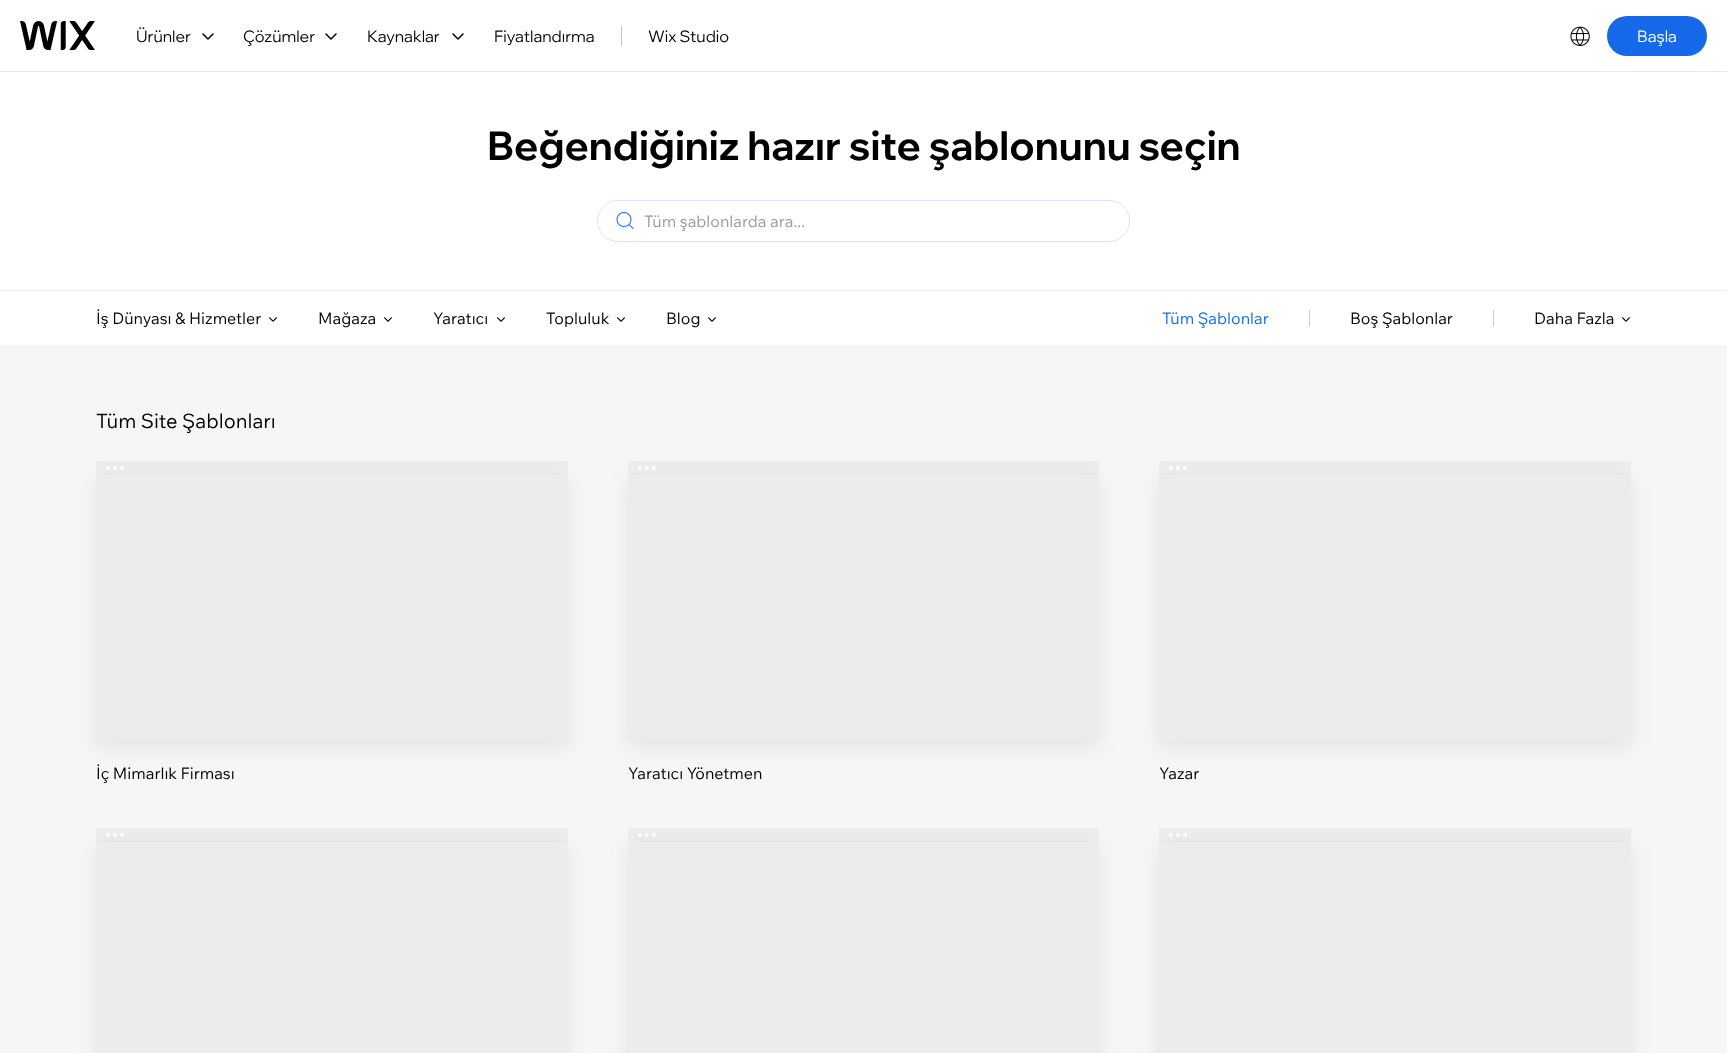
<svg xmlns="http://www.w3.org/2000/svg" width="1727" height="1053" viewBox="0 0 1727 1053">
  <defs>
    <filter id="blur1" x="-50%" y="-200%" width="200%" height="500%"><feGaussianBlur stdDeviation="10"/></filter>
  </defs>
  <rect width="100%" height="100%" fill="#ffffff"/>
  <rect x="0" y="71" width="1727" height="1" fill="#eaeaea"/>
  <image x="20" y="21" width="75" height="29" href="img1.png"/>
  <text x="136" y="42" font-family="Wix Madefor Display" font-size="16" fill="#000000">Ürünler</text>
  <path d="M203 34L208 39L213 34" fill="none" stroke="#000000" stroke-width="1.5" stroke-linecap="round" stroke-linejoin="round"/>
  <text x="243" y="42" font-family="Wix Madefor Display" font-size="16" fill="#000000">Çözümler</text>
  <path d="M326 34L331 39L336 34" fill="none" stroke="#000000" stroke-width="1.5" stroke-linecap="round" stroke-linejoin="round"/>
  <text x="367" y="42" font-family="Wix Madefor Display" font-size="16" fill="#000000">Kaynaklar</text>
  <path d="M453 34L458 39L463 34" fill="none" stroke="#000000" stroke-width="1.5" stroke-linecap="round" stroke-linejoin="round"/>
  <text x="494" y="42" font-family="Wix Madefor Display" font-size="16" fill="#000000">Fiyatlandırma</text>
  <rect x="621" y="26" width="1" height="20" fill="#c0c2ce"/>
  <text x="648" y="42" font-family="Wix Madefor Display" font-size="16" fill="#000000">Wix Studio</text>
  <image x="1570" y="26" width="20" height="20" href="img2.png"/>
  <rect x="1607" y="16" width="100" height="40" rx="20" fill="#166aea"/>
  <text x="1637" y="42" font-family="Wix Madefor Display" font-size="16" fill="#ffffff">Başla</text>
  <rect x="0" y="290" width="1727" height="1" fill="#ebebeb"/>
  <text x="487" y="160" font-family="Wix Madefor Display" font-size="40" font-weight="bold" fill="#000000">Beğendiğiniz hazır site şablonunu seçin</text>
  <rect x="597.5" y="200.5" width="532" height="41" rx="20.5" fill="none" stroke="#d6e6fe"/>
  <image x="616" y="212" width="18" height="17" href="img3.png"/>
  <text x="644" y="227" font-family="Wix Madefor Text" font-size="16" fill="#9b9b9b">Tüm şablonlarda ara...</text>
  <text x="96" y="324" font-family="Wix Madefor Text" font-size="16" fill="#000000">İş Dünyası &amp; Hizmetler</text>
  <image x="269" y="317" width="8" height="5" href="img4.png"/>
  <text x="318" y="324" font-family="Wix Madefor Text" font-size="16" fill="#000000">Mağaza</text>
  <image x="384" y="317" width="8" height="5" href="img4.png"/>
  <text x="433" y="324" font-family="Wix Madefor Text" font-size="16" fill="#000000">Yaratıcı</text>
  <image x="497" y="317" width="8" height="5" href="img4.png"/>
  <text x="546" y="324" font-family="Wix Madefor Text" font-size="16" fill="#000000">Topluluk</text>
  <image x="617" y="317" width="8" height="5" href="img4.png"/>
  <text x="666" y="324" font-family="Wix Madefor Text" font-size="16" fill="#000000">Blog</text>
  <image x="708" y="317" width="8" height="5" href="img4.png"/>
  <text x="1162" y="324" font-family="Wix Madefor Text" font-size="16" fill="#0c6efc">Tüm Şablonlar</text>
  <rect x="1309" y="310" width="1" height="17" fill="#cccccc"/>
  <text x="1350" y="324" font-family="Wix Madefor Text" font-size="16" fill="#000000">Boş Şablonlar</text>
  <rect x="1493" y="310" width="1" height="17" fill="#cccccc"/>
  <text x="1534" y="324" font-family="Wix Madefor Text" font-size="16" fill="#000000">Daha Fazla</text>
  <image x="1622" y="317" width="8" height="5" href="img4.png"/>
  <rect x="0" y="345" width="1727" height="708" fill="#f5f7f7"/>
  <text x="96" y="428" font-family="Wix Madefor Text" font-size="20" fill="#000000">Tüm Site Şablonları</text>
  <rect x="96" y="461" width="472" height="14" fill="#ebedef"/>
  <circle cx="107.7" cy="468" r="1.9" fill="#ffffff"/>
  <circle cx="114.8" cy="468" r="1.9" fill="#ffffff"/>
  <circle cx="121.9" cy="468" r="1.9" fill="#ffffff"/>
  <rect x="96" y="481" width="472" height="265" fill="#000000" fill-opacity="0.08" filter="url(#blur1)"/>
  <rect x="96" y="475" width="472" height="265" fill="#ececec"/>
  <text x="96" y="779" font-family="Wix Madefor Text" font-size="16" fill="#000000">İç Mimarlık Firması</text>
  <rect x="628" y="461" width="471" height="14" fill="#ebedef"/>
  <circle cx="639.7" cy="468" r="1.9" fill="#ffffff"/>
  <circle cx="646.8" cy="468" r="1.9" fill="#ffffff"/>
  <circle cx="653.9" cy="468" r="1.9" fill="#ffffff"/>
  <rect x="628" y="481" width="471" height="265" fill="#000000" fill-opacity="0.08" filter="url(#blur1)"/>
  <rect x="628" y="475" width="471" height="265" fill="#ececec"/>
  <text x="628" y="779" font-family="Wix Madefor Text" font-size="16" fill="#000000">Yaratıcı Yönetmen</text>
  <rect x="1159" y="461" width="472" height="14" fill="#ebedef"/>
  <circle cx="1170.7" cy="468" r="1.9" fill="#ffffff"/>
  <circle cx="1177.8" cy="468" r="1.9" fill="#ffffff"/>
  <circle cx="1184.9" cy="468" r="1.9" fill="#ffffff"/>
  <rect x="1159" y="481" width="472" height="265" fill="#000000" fill-opacity="0.08" filter="url(#blur1)"/>
  <rect x="1159" y="475" width="472" height="265" fill="#ececec"/>
  <text x="1159" y="779" font-family="Wix Madefor Text" font-size="16" fill="#000000">Yazar</text>
  <rect x="96" y="828" width="472" height="14" fill="#ebedef"/>
  <circle cx="107.7" cy="835" r="1.9" fill="#ffffff"/>
  <circle cx="114.8" cy="835" r="1.9" fill="#ffffff"/>
  <circle cx="121.9" cy="835" r="1.9" fill="#ffffff"/>
  <rect x="96" y="848" width="472" height="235" fill="#000000" fill-opacity="0.08" filter="url(#blur1)"/>
  <rect x="96" y="842" width="472" height="211" fill="#ececec"/>
  <rect x="628" y="828" width="471" height="14" fill="#ebedef"/>
  <circle cx="639.7" cy="835" r="1.9" fill="#ffffff"/>
  <circle cx="646.8" cy="835" r="1.9" fill="#ffffff"/>
  <circle cx="653.9" cy="835" r="1.9" fill="#ffffff"/>
  <rect x="628" y="848" width="471" height="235" fill="#000000" fill-opacity="0.08" filter="url(#blur1)"/>
  <rect x="628" y="842" width="471" height="211" fill="#ececec"/>
  <rect x="1159" y="828" width="472" height="14" fill="#ebedef"/>
  <circle cx="1170.7" cy="835" r="1.9" fill="#ffffff"/>
  <circle cx="1177.8" cy="835" r="1.9" fill="#ffffff"/>
  <circle cx="1184.9" cy="835" r="1.9" fill="#ffffff"/>
  <rect x="1159" y="848" width="472" height="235" fill="#000000" fill-opacity="0.08" filter="url(#blur1)"/>
  <rect x="1159" y="842" width="472" height="211" fill="#ececec"/>
</svg>
